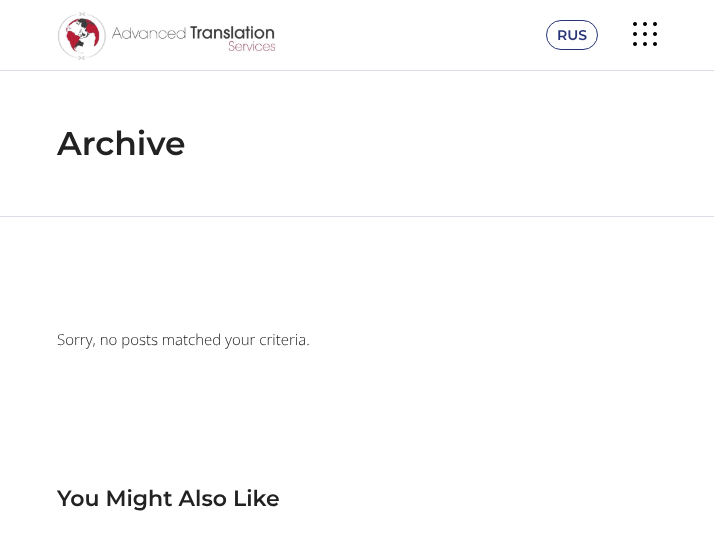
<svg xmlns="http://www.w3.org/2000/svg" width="714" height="553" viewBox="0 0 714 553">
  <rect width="100%" height="100%" fill="#ffffff"/>
  <image x="57" y="12" width="219" height="48" href="img1.png"/>
  <rect x="546.5" y="20.5" width="51" height="29" rx="14.5" fill="none" stroke="#293478"/>
  <text x="557" y="40" font-family="Montserrat" font-size="14" font-weight="600" fill="#293478">RUS</text>
  <image x="633" y="22" width="24" height="24" href="img2.png"/>
  <rect x="0" y="70" width="714" height="1" fill="#dadce6"/>
  <rect x="0" y="216" width="714" height="1" fill="#dadce6"/>
  <text x="57" y="155" font-family="Montserrat" font-size="33" font-weight="600" fill="#222222">Archive</text>
  <text x="57" y="345" font-family="Open Sans" font-size="15" font-weight="300" fill="#222222">Sorry, no posts matched your criteria.</text>
  <text x="57" y="506" font-family="Montserrat" font-size="22" font-weight="600" fill="#222222">You Might Also Like</text>
</svg>
